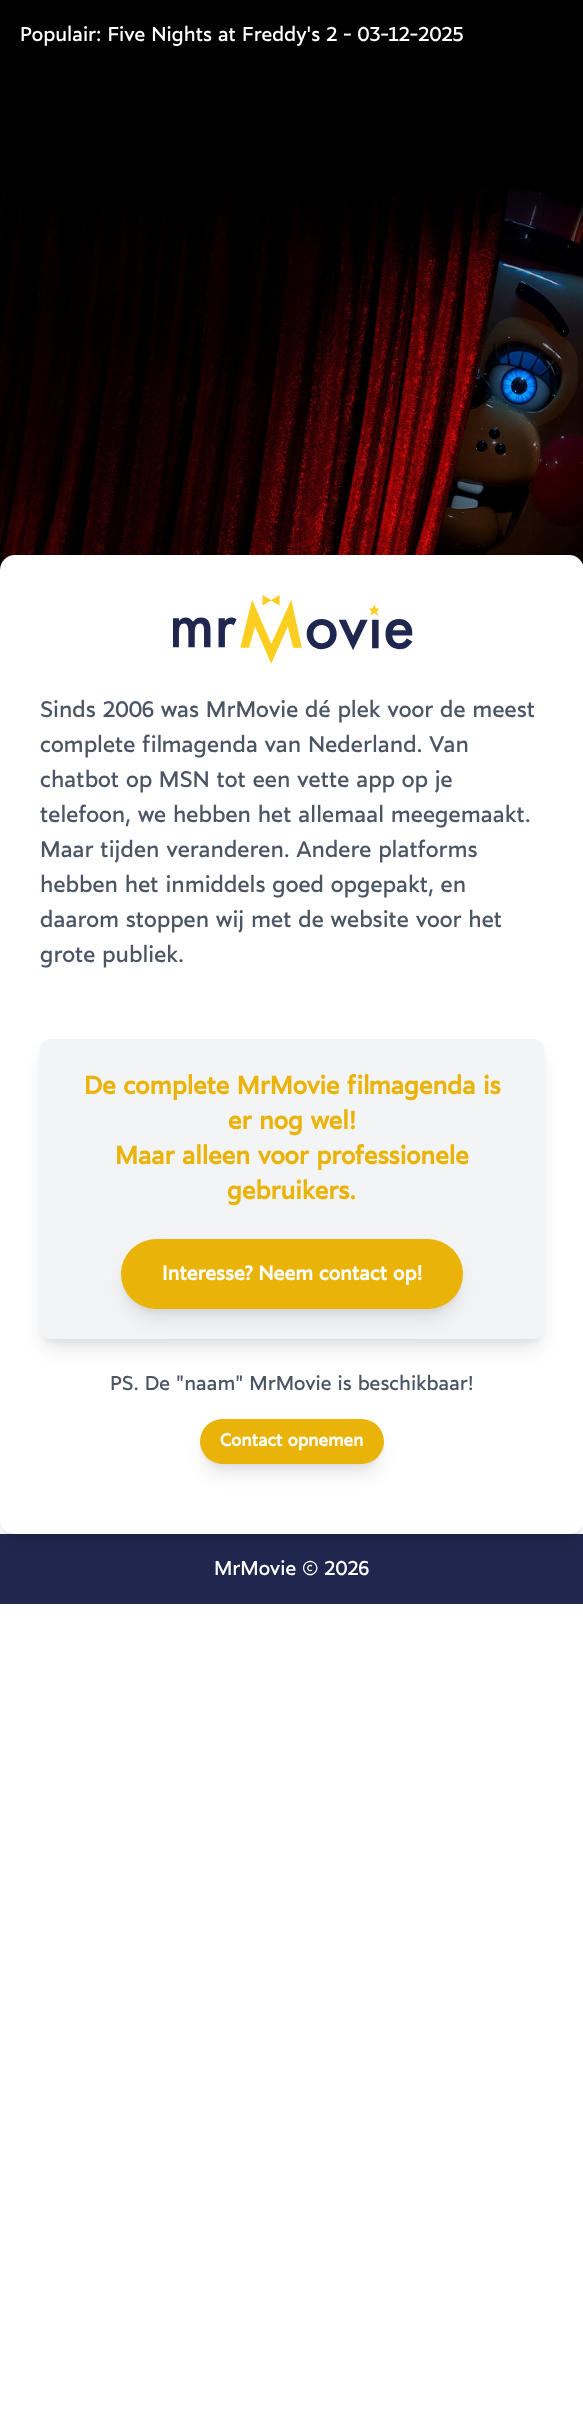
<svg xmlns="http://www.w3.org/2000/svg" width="583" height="2431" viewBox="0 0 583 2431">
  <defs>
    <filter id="blur1" x="-50%" y="-200%" width="200%" height="500%"><feGaussianBlur stdDeviation="4"/></filter>
    <filter id="blur2" x="-50%" y="-200%" width="200%" height="500%"><feGaussianBlur stdDeviation="9.5"/></filter>
  </defs>
  <rect width="100%" height="100%" fill="#ffffff"/>
  <image x="0" y="0" width="583" height="570" href="img1.png"/>
  <text x="20" y="41" font-family="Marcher" font-size="20" fill="#ffffff">Populair: Five Nights at Freddy's 2 - 03-12-2025</text>
  <rect x="0" y="1534" width="583" height="70" fill="#20274f"/>
  <rect x="5" y="565" width="574" height="969" rx="10" fill="#000000" fill-opacity="0.1" filter="url(#blur1)"/>
  <rect x="4" y="571" width="576" height="972" rx="11" fill="#000000" fill-opacity="0.1" filter="url(#blur2)"/>
  <rect x="0" y="555" width="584" height="979" rx="15" fill="#ffffff"/>
  <image x="173" y="595" width="240" height="69" href="img2.png"/>
  <text x="40" y="717" font-family="Marcher" font-size="22.5" fill="#4b5563">Sinds 2006 was MrMovie dé plek voor de meest</text>
  <text x="40" y="752" font-family="Marcher" font-size="22.5" fill="#4b5563">complete filmagenda van Nederland. Van</text>
  <text x="40" y="787" font-family="Marcher" font-size="22.5" fill="#4b5563">chatbot op MSN tot een vette app op je</text>
  <text x="40" y="822" font-family="Marcher" font-size="22.5" fill="#4b5563">telefoon, we hebben het allemaal meegemaakt.</text>
  <text x="40" y="857" font-family="Marcher" font-size="22.5" fill="#4b5563">Maar tijden veranderen. Andere platforms</text>
  <text x="40" y="892" font-family="Marcher" font-size="22.5" fill="#4b5563">hebben het inmiddels goed opgepakt, en</text>
  <text x="40" y="927" font-family="Marcher" font-size="22.5" fill="#4b5563">daarom stoppen wij met de website voor het</text>
  <text x="40" y="962" font-family="Marcher" font-size="22.5" fill="#4b5563">grote publiek.</text>
  <rect x="45" y="1049" width="494" height="290" rx="5" fill="#000000" fill-opacity="0.1" filter="url(#blur1)"/>
  <rect x="44" y="1055" width="496" height="293" rx="6" fill="#000000" fill-opacity="0.1" filter="url(#blur2)"/>
  <rect x="40" y="1039" width="504" height="300" rx="10" fill="#f3f4f6"/>
  <text x="84" y="1094" font-family="Marcher" font-size="25" font-weight="bold" fill="#eab308">De complete MrMovie filmagenda is</text>
  <text x="228" y="1129" font-family="Marcher" font-size="25" font-weight="bold" fill="#eab308">er nog wel!</text>
  <text x="115" y="1164" font-family="Marcher" font-size="25" font-weight="bold" fill="#eab308">Maar alleen voor professionele</text>
  <text x="227" y="1199" font-family="Marcher" font-size="25" font-weight="bold" fill="#eab308">gebruikers.</text>
  <rect x="126" y="1249" width="332" height="60" rx="30" fill="#000000" fill-opacity="0.1" filter="url(#blur1)"/>
  <rect x="125" y="1255" width="334" height="63" rx="31.5" fill="#000000" fill-opacity="0.1" filter="url(#blur2)"/>
  <rect x="121" y="1239" width="342" height="70" rx="35" fill="#eab308"/>
  <text x="162" y="1280" font-family="Marcher" font-size="20" font-weight="bold" fill="#ffffff">Interesse? Neem contact op!</text>
  <text x="110" y="1390" font-family="Marcher" font-size="20" fill="#4b5563">PS. De "naam" MrMovie is beschikbaar!</text>
  <rect x="205" y="1429" width="174" height="35" rx="17.5" fill="#000000" fill-opacity="0.1" filter="url(#blur1)"/>
  <rect x="204" y="1435" width="176" height="38" rx="19" fill="#000000" fill-opacity="0.1" filter="url(#blur2)"/>
  <rect x="200" y="1419" width="184" height="45" rx="22.5" fill="#eab308"/>
  <text x="220" y="1446" font-family="Marcher" font-size="17.5" font-weight="bold" fill="#ffffff">Contact opnemen</text>
  <text x="214" y="1575" font-family="Marcher" font-size="20" fill="#ffffff">MrMovie © 2026</text>
</svg>
